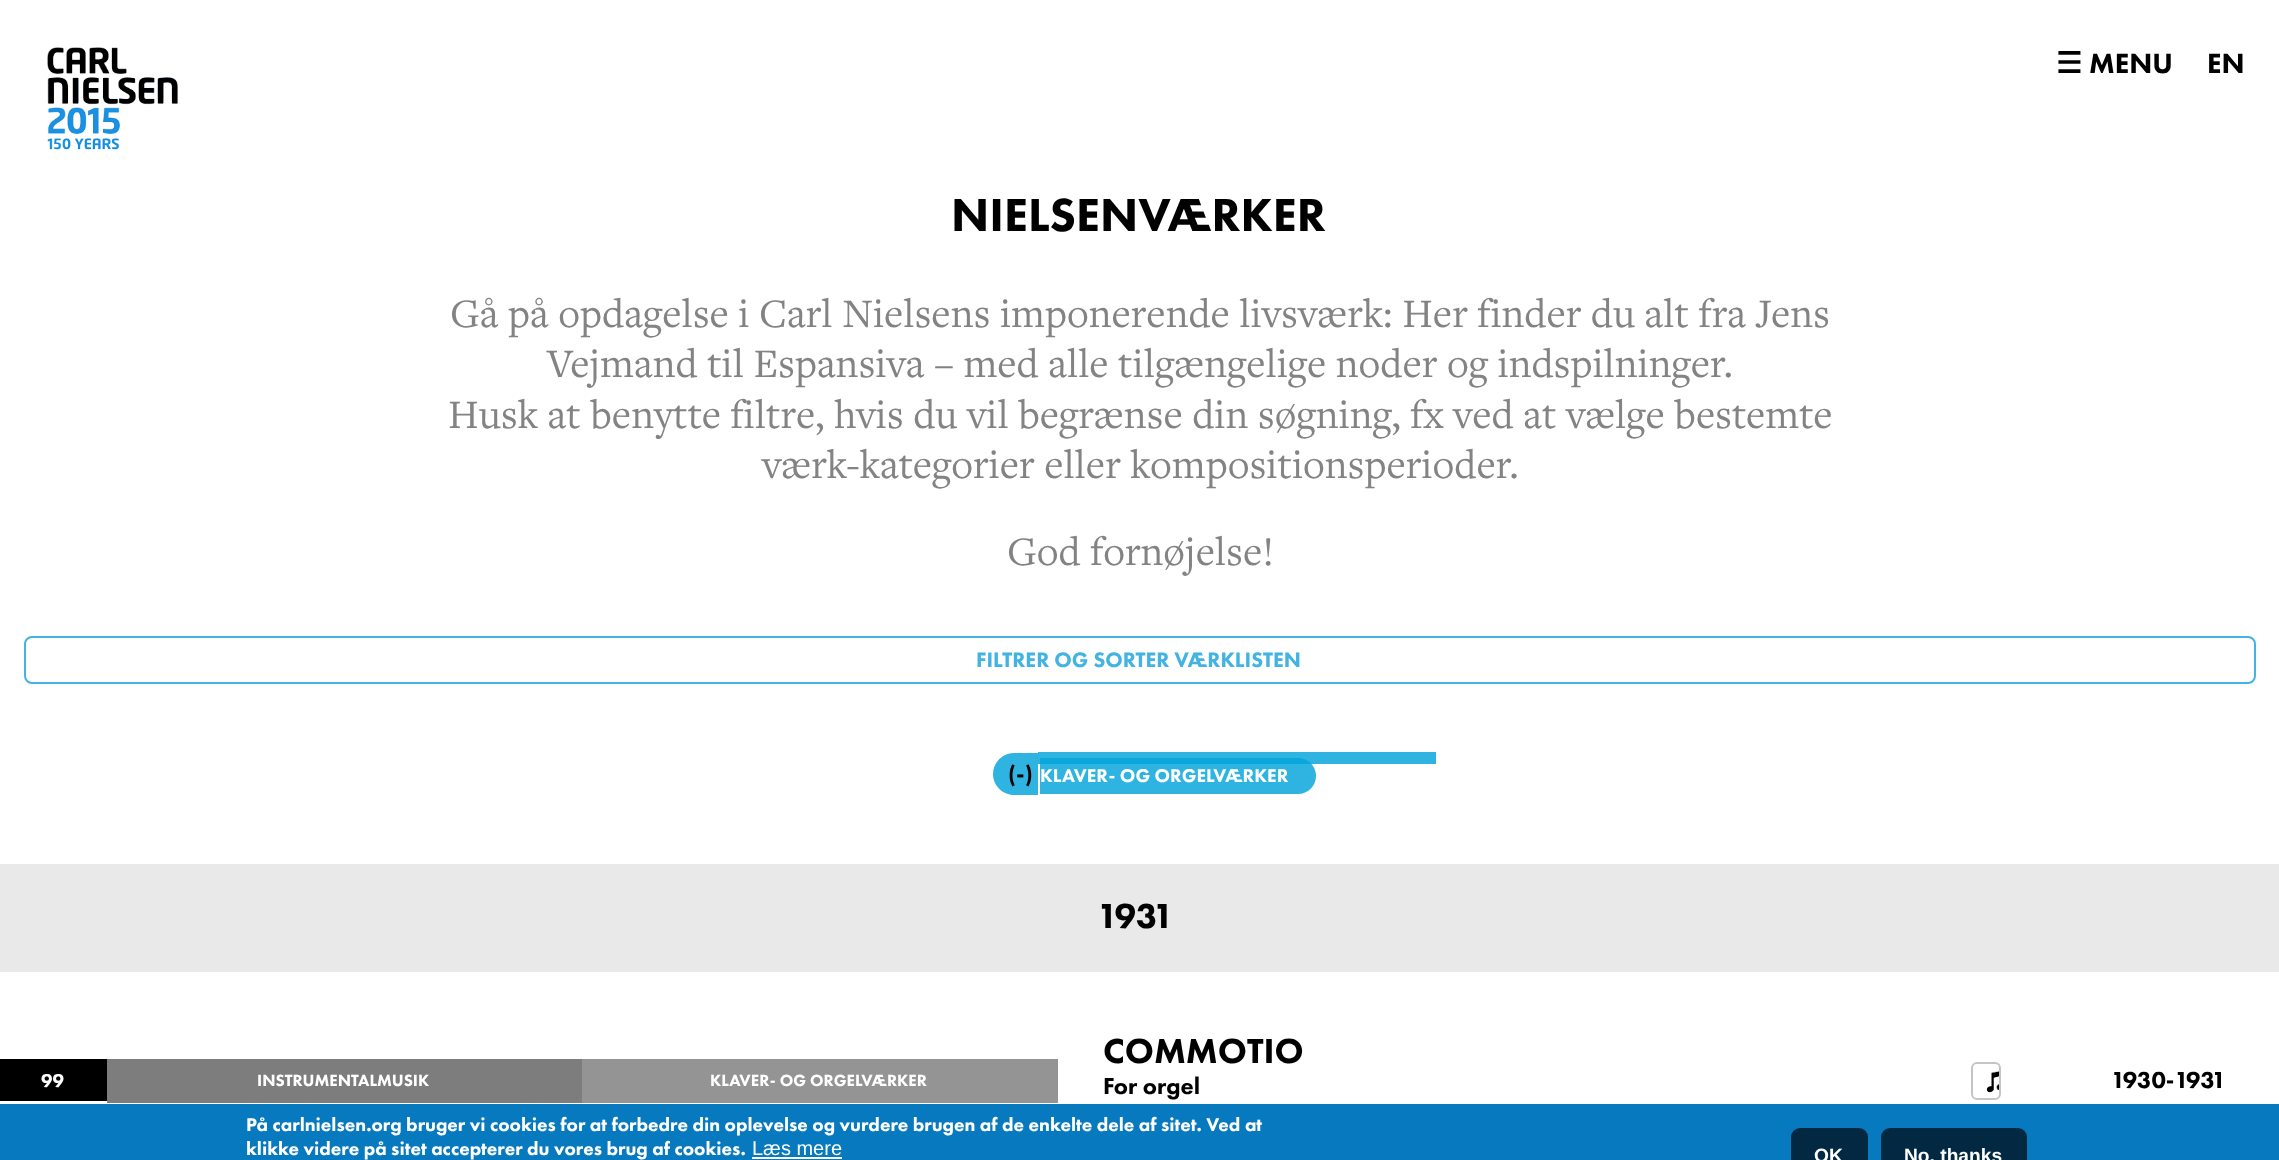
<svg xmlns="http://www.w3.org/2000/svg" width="2279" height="1160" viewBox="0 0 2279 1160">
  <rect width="100%" height="100%" fill="#ffffff"/>
  <image x="47" y="47" width="131" height="103" href="img1.png"/>
  <text x="2056" y="73" font-family="DejaVu Sans" font-size="29" font-weight="bold" fill="#000000">☰</text>
  <text x="2089" y="73" font-family="Futura PT" font-size="29" font-weight="900" fill="#000000">MENU</text>
  <text x="2207" y="73" font-family="Futura PT" font-size="29" font-weight="900" fill="#000000">EN</text>
  <text x="450" y="327" font-family="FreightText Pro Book" font-size="42" fill="#838383">Gå på opdagelse i Carl Nielsens imponerende livsværk: Her finder du alt fra Jens</text>
  <text x="547" y="377" font-family="FreightText Pro Book" font-size="42" fill="#838383">Vejmand til Espansiva – med alle tilgængelige noder og indspilninger.</text>
  <text x="448" y="428" font-family="FreightText Pro Book" font-size="42" fill="#838383">Husk at benytte filtre, hvis du vil begrænse din søgning, fx ved at vælge bestemte</text>
  <text x="762" y="478" font-family="FreightText Pro Book" font-size="42" fill="#838383">værk-kategorier eller kompositionsperioder.</text>
  <text x="1007" y="565" font-family="FreightText Pro Book" font-size="42" fill="#838383">God fornøjelse!</text>
  <rect x="25" y="637" width="2230" height="46" rx="7" fill="none" stroke="#42b3e2" stroke-width="2"/>
  <text x="976" y="667" font-family="Futura PT" font-size="21.6" font-weight="900" fill="#42b3e2">FILTRER OG SORTER VÆRKLISTEN</text>
  <path d="M1014 753H1038V795H1014C1002.5 795 993 785.5 993 774C993 762.5 1002.5 753 1014 753Z" fill="#2fb4e1"/>
  <text x="1008" y="782" font-family="Futura PT" font-size="24" font-weight="900" fill="#000000">(-)</text>
  <rect x="1038" y="752" width="398" height="12" fill="#2fb4e1"/>
  <path d="M1040 758H1298C1308 758 1316 766 1316 776C1316 786 1308 794 1298 794H1040Z" fill="#01a3db" fill-opacity="0.82"/>
  <text x="1040" y="782" font-family="Futura PT" font-size="19.2" font-weight="900" fill="#ffffff">KLAVER- OG ORGELVÆRKER</text>
  <text x="951" y="231" font-family="Futura PT" font-size="48" font-weight="900" fill="#000000">NIELSENVÆRKER</text>
  <rect x="0" y="864" width="2279" height="108" fill="#e9e9e9"/>
  <text x="1097" y="928" font-family="Futura PT" font-size="36" font-weight="900" fill="#000000">1931</text>
  <rect x="0" y="1059" width="107" height="42" fill="#000000"/>
  <text x="41" y="1087" font-family="Futura PT" font-size="19.2" font-weight="900" fill="#ffffff">99</text>
  <rect x="107" y="1059" width="475" height="44" fill="#7d7d7d"/>
  <text x="257" y="1086" font-family="Futura PT" font-size="16.75" font-weight="900" fill="#ffffff">INSTRUMENTALMUSIK</text>
  <rect x="582" y="1059" width="476" height="44" fill="#949494"/>
  <text x="710" y="1086" font-family="Futura PT" font-size="16.75" font-weight="900" fill="#ffffff">KLAVER- OG ORGELVÆRKER</text>
  <text x="1103" y="1063" font-family="Futura PT" font-size="36" font-weight="900" fill="#000000">COMMOTIO</text>
  <text x="1103" y="1094" font-family="Futura PT" font-size="24" font-weight="900" fill="#000000">For orgel</text>
  <image x="1986" y="1071" width="13" height="22" href="img2.png"/>
  <rect x="1972" y="1063" width="28" height="36" rx="5" fill="none" stroke="#c5c5c5" stroke-width="2"/>
  <text x="2111" y="1088" font-family="Futura PT" font-size="24" font-weight="900" fill="#000000">1930-1931</text>
  <rect x="0" y="1104" width="2279" height="56" fill="#0779bf"/>
  <text x="246" y="1131" font-family="Futura PT" font-size="19.2" font-weight="900" fill="#ffffff">På carlnielsen.org bruger vi cookies for at forbedre din oplevelse og vurdere brugen af de enkelte dele af sitet. Ved at</text>
  <text x="246" y="1155" font-family="Futura PT" font-size="19.2" font-weight="900" fill="#ffffff">klikke videre på sitet accepterer du vores brug af cookies.</text>
  <text x="752" y="1155" font-family="Liberation Sans" font-size="20" fill="#ffffff">Læs mere</text>
  <rect x="752" y="1157" width="90" height="2" fill="#ffffff"/>
  <rect x="1791" y="1128" width="77" height="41" rx="9" fill="#022941"/>
  <text x="1814" y="1162" font-family="Liberation Sans" font-size="19.2" font-weight="bold" fill="#ffffff">OK</text>
  <rect x="1881" y="1128" width="146" height="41" rx="9" fill="#022941"/>
  <text x="1904" y="1162" font-family="Liberation Sans" font-size="19.2" font-weight="bold" fill="#ffffff">No, thanks</text>
</svg>
